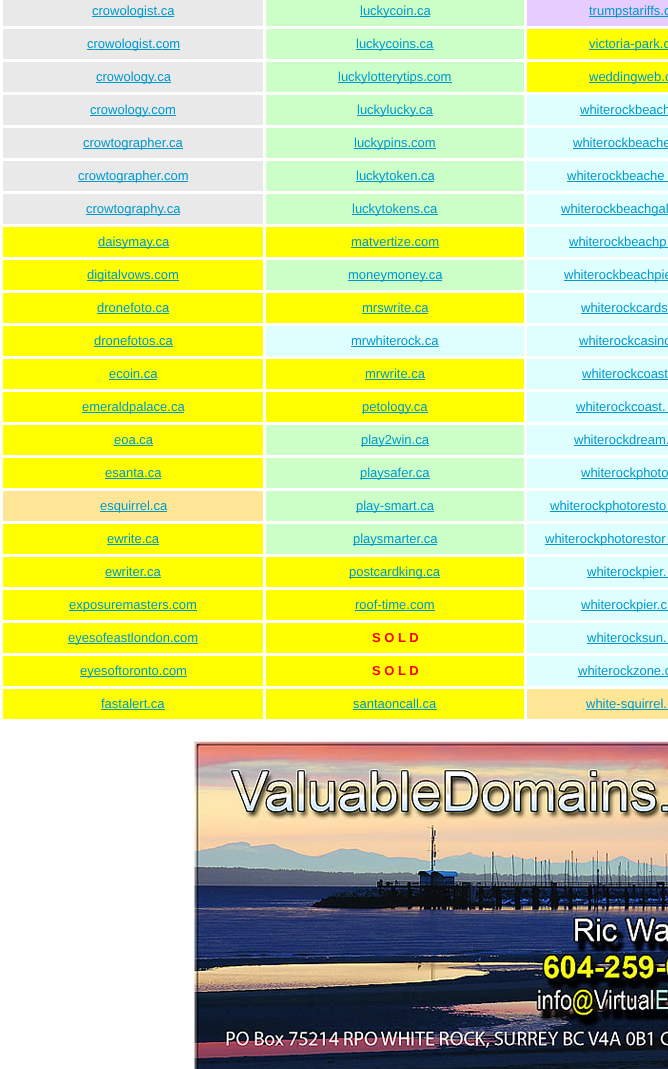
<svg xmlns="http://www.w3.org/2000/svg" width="668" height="1069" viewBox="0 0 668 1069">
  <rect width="100%" height="100%" fill="#ffffff"/>
  <rect x="3" y="0" width="260" height="26" fill="#e9e9e9"/>
  <rect x="92" y="16" width="82" height="1" fill="#0099cc"/>
  <text x="92" y="15" font-family="Liberation Sans" font-size="13" fill="#0099cc">crowologist.ca</text>
  <rect x="266" y="0" width="258" height="26" fill="#ccfec7"/>
  <rect x="360" y="16" width="70" height="1" fill="#0099cc"/>
  <text x="360" y="15" font-family="Liberation Sans" font-size="13" fill="#0099cc">luckycoin.ca</text>
  <rect x="527" y="0" width="141" height="26" fill="#e6ccff"/>
  <rect x="589" y="16" width="79" height="1" fill="#0099cc"/>
  <text x="589" y="15" font-family="Liberation Sans" font-size="13" fill="#0099cc">trumpstariffs.c</text>
  <rect x="3" y="29" width="260" height="30" fill="#e9e9e9"/>
  <rect x="87" y="49" width="93" height="1" fill="#0099cc"/>
  <text x="87" y="48" font-family="Liberation Sans" font-size="13" fill="#0099cc">crowologist.com</text>
  <rect x="266" y="29" width="258" height="30" fill="#ccfec7"/>
  <rect x="356" y="49" width="78" height="1" fill="#0099cc"/>
  <text x="356" y="48" font-family="Liberation Sans" font-size="13" fill="#0099cc">luckycoins.ca</text>
  <rect x="527" y="29" width="141" height="30" fill="#ffff00"/>
  <rect x="589" y="49" width="79" height="1" fill="#0099cc"/>
  <text x="589" y="48" font-family="Liberation Sans" font-size="13" fill="#0099cc">victoria-park.c</text>
  <rect x="3" y="62" width="260" height="30" fill="#e9e9e9"/>
  <rect x="96" y="82" width="75" height="1" fill="#0099cc"/>
  <text x="96" y="81" font-family="Liberation Sans" font-size="13" fill="#0099cc">crowology.ca</text>
  <rect x="266" y="62" width="258" height="30" fill="#ccfec7"/>
  <rect x="338" y="82" width="114" height="1" fill="#0099cc"/>
  <text x="338" y="81" font-family="Liberation Sans" font-size="13" fill="#0099cc">luckylotterytips.com</text>
  <rect x="527" y="62" width="141" height="30" fill="#ffff00"/>
  <rect x="589" y="82" width="79" height="1" fill="#0099cc"/>
  <text x="589" y="81" font-family="Liberation Sans" font-size="13" fill="#0099cc">weddingweb.c</text>
  <rect x="3" y="95" width="260" height="30" fill="#e9e9e9"/>
  <rect x="90" y="115" width="86" height="1" fill="#0099cc"/>
  <text x="90" y="114" font-family="Liberation Sans" font-size="13" fill="#0099cc">crowology.com</text>
  <rect x="266" y="95" width="258" height="30" fill="#ccfec7"/>
  <rect x="357" y="115" width="76" height="1" fill="#0099cc"/>
  <text x="357" y="114" font-family="Liberation Sans" font-size="13" fill="#0099cc">luckylucky.ca</text>
  <rect x="527" y="95" width="141" height="30" fill="#dffffe"/>
  <text x="580" y="114" font-family="Liberation Sans" font-size="13" fill="#0099cc">whiterockbeach</text>
  <rect x="580" y="115" width="88" height="1" fill="#0099cc"/>
  <rect x="3" y="128" width="260" height="30" fill="#e9e9e9"/>
  <rect x="83" y="148" width="100" height="1" fill="#0099cc"/>
  <text x="83" y="147" font-family="Liberation Sans" font-size="13" fill="#0099cc">crowtographer.ca</text>
  <rect x="266" y="128" width="258" height="30" fill="#ccfec7"/>
  <rect x="354" y="148" width="82" height="1" fill="#0099cc"/>
  <text x="354" y="147" font-family="Liberation Sans" font-size="13" fill="#0099cc">luckypins.com</text>
  <rect x="527" y="128" width="141" height="30" fill="#dffffe"/>
  <text x="573" y="147" font-family="Liberation Sans" font-size="13" fill="#0099cc">whiterockbeache</text>
  <rect x="573" y="148" width="95" height="1" fill="#0099cc"/>
  <rect x="3" y="161" width="260" height="30" fill="#e9e9e9"/>
  <rect x="78" y="181" width="110" height="1" fill="#0099cc"/>
  <text x="78" y="180" font-family="Liberation Sans" font-size="13" fill="#0099cc">crowtographer.com</text>
  <rect x="266" y="161" width="258" height="30" fill="#ccfec7"/>
  <rect x="356" y="181" width="78" height="1" fill="#0099cc"/>
  <text x="356" y="180" font-family="Liberation Sans" font-size="13" fill="#0099cc">luckytoken.ca</text>
  <rect x="527" y="161" width="141" height="30" fill="#dffffe"/>
  <text x="567" y="180" font-family="Liberation Sans" font-size="13" fill="#0099cc">whiterockbeache</text>
  <rect x="567" y="181" width="101" height="1" fill="#0099cc"/>
  <rect x="3" y="194" width="260" height="30" fill="#e9e9e9"/>
  <rect x="86" y="214" width="94" height="1" fill="#0099cc"/>
  <text x="86" y="213" font-family="Liberation Sans" font-size="13" fill="#0099cc">crowtography.ca</text>
  <rect x="266" y="194" width="258" height="30" fill="#ccfec7"/>
  <rect x="352" y="214" width="86" height="1" fill="#0099cc"/>
  <text x="352" y="213" font-family="Liberation Sans" font-size="13" fill="#0099cc">luckytokens.ca</text>
  <rect x="527" y="194" width="141" height="30" fill="#dffffe"/>
  <rect x="561" y="214" width="107" height="1" fill="#0099cc"/>
  <text x="561" y="213" font-family="Liberation Sans" font-size="13" fill="#0099cc">whiterockbeachgal</text>
  <rect x="3" y="227" width="260" height="30" fill="#ffff00"/>
  <rect x="98" y="247" width="71" height="1" fill="#0099cc"/>
  <text x="98" y="246" font-family="Liberation Sans" font-size="13" fill="#0099cc">daisymay.ca</text>
  <rect x="266" y="227" width="258" height="30" fill="#ffff00"/>
  <text x="351" y="246" font-family="Liberation Sans" font-size="13" fill="#0099cc">matvertize.com</text>
  <rect x="351" y="247" width="88" height="1" fill="#0099cc"/>
  <rect x="527" y="227" width="141" height="30" fill="#dffffe"/>
  <rect x="569" y="247" width="99" height="1" fill="#0099cc"/>
  <text x="569" y="246" font-family="Liberation Sans" font-size="13" fill="#0099cc">whiterockbeachp</text>
  <rect x="3" y="260" width="260" height="30" fill="#ffff00"/>
  <rect x="87" y="280" width="92" height="1" fill="#0099cc"/>
  <text x="87" y="279" font-family="Liberation Sans" font-size="13" fill="#0099cc">digitalvows.com</text>
  <rect x="266" y="260" width="258" height="30" fill="#ccfec7"/>
  <rect x="348" y="280" width="94" height="1" fill="#0099cc"/>
  <text x="348" y="279" font-family="Liberation Sans" font-size="13" fill="#0099cc">moneymoney.ca</text>
  <rect x="527" y="260" width="141" height="30" fill="#dffffe"/>
  <rect x="564" y="280" width="104" height="1" fill="#0099cc"/>
  <text x="564" y="279" font-family="Liberation Sans" font-size="13" fill="#0099cc">whiterockbeachpie</text>
  <rect x="3" y="293" width="260" height="30" fill="#ffff00"/>
  <text x="97" y="312" font-family="Liberation Sans" font-size="13" fill="#0099cc">dronefoto.ca</text>
  <rect x="97" y="313" width="72" height="1" fill="#0099cc"/>
  <rect x="266" y="293" width="258" height="30" fill="#ffff00"/>
  <text x="362" y="312" font-family="Liberation Sans" font-size="13" fill="#0099cc">mrswrite.ca</text>
  <rect x="362" y="313" width="66" height="1" fill="#0099cc"/>
  <rect x="527" y="293" width="141" height="30" fill="#dffffe"/>
  <text x="581" y="312" font-family="Liberation Sans" font-size="13" fill="#0099cc">whiterockcards</text>
  <rect x="581" y="313" width="87" height="1" fill="#0099cc"/>
  <rect x="3" y="326" width="260" height="30" fill="#ffff00"/>
  <text x="94" y="345" font-family="Liberation Sans" font-size="13" fill="#0099cc">dronefotos.ca</text>
  <rect x="94" y="346" width="79" height="1" fill="#0099cc"/>
  <rect x="266" y="326" width="258" height="30" fill="#dffffe"/>
  <text x="351" y="345" font-family="Liberation Sans" font-size="13" fill="#0099cc">mrwhiterock.ca</text>
  <rect x="351" y="346" width="88" height="1" fill="#0099cc"/>
  <rect x="527" y="326" width="141" height="30" fill="#dffffe"/>
  <text x="579" y="345" font-family="Liberation Sans" font-size="13" fill="#0099cc">whiterockcasino</text>
  <rect x="579" y="346" width="89" height="1" fill="#0099cc"/>
  <rect x="3" y="359" width="260" height="30" fill="#ffff00"/>
  <text x="109" y="378" font-family="Liberation Sans" font-size="13" fill="#0099cc">ecoin.ca</text>
  <rect x="109" y="379" width="48" height="1" fill="#0099cc"/>
  <rect x="266" y="359" width="258" height="30" fill="#ffff00"/>
  <text x="365" y="378" font-family="Liberation Sans" font-size="13" fill="#0099cc">mrwrite.ca</text>
  <rect x="365" y="379" width="60" height="1" fill="#0099cc"/>
  <rect x="527" y="359" width="141" height="30" fill="#dffffe"/>
  <text x="582" y="378" font-family="Liberation Sans" font-size="13" fill="#0099cc">whiterockcoast</text>
  <rect x="582" y="379" width="86" height="1" fill="#0099cc"/>
  <rect x="3" y="392" width="260" height="30" fill="#ffff00"/>
  <rect x="82" y="412" width="102" height="1" fill="#0099cc"/>
  <text x="82" y="411" font-family="Liberation Sans" font-size="13" fill="#0099cc">emeraldpalace.ca</text>
  <rect x="266" y="392" width="258" height="30" fill="#ffff00"/>
  <rect x="362" y="412" width="66" height="1" fill="#0099cc"/>
  <text x="362" y="411" font-family="Liberation Sans" font-size="13" fill="#0099cc">petology.ca</text>
  <rect x="527" y="392" width="141" height="30" fill="#dffffe"/>
  <text x="576" y="411" font-family="Liberation Sans" font-size="13" fill="#0099cc">whiterockcoast.</text>
  <rect x="576" y="412" width="92" height="1" fill="#0099cc"/>
  <rect x="3" y="425" width="260" height="30" fill="#ffff00"/>
  <text x="114" y="444" font-family="Liberation Sans" font-size="13" fill="#0099cc">eoa.ca</text>
  <rect x="114" y="445" width="39" height="1" fill="#0099cc"/>
  <rect x="266" y="425" width="258" height="30" fill="#ccfec7"/>
  <rect x="361" y="445" width="68" height="1" fill="#0099cc"/>
  <text x="361" y="444" font-family="Liberation Sans" font-size="13" fill="#0099cc">play2win.ca</text>
  <rect x="527" y="425" width="141" height="30" fill="#dffffe"/>
  <text x="574" y="444" font-family="Liberation Sans" font-size="13" fill="#0099cc">whiterockdream.</text>
  <rect x="574" y="445" width="94" height="1" fill="#0099cc"/>
  <rect x="3" y="458" width="260" height="30" fill="#ffff00"/>
  <text x="105" y="477" font-family="Liberation Sans" font-size="13" fill="#0099cc">esanta.ca</text>
  <rect x="105" y="478" width="56" height="1" fill="#0099cc"/>
  <rect x="266" y="458" width="258" height="30" fill="#ccfec7"/>
  <rect x="360" y="478" width="70" height="1" fill="#0099cc"/>
  <text x="360" y="477" font-family="Liberation Sans" font-size="13" fill="#0099cc">playsafer.ca</text>
  <rect x="527" y="458" width="141" height="30" fill="#dffffe"/>
  <rect x="581" y="478" width="87" height="1" fill="#0099cc"/>
  <text x="581" y="477" font-family="Liberation Sans" font-size="13" fill="#0099cc">whiterockphoto</text>
  <rect x="3" y="491" width="260" height="30" fill="#ffe697"/>
  <rect x="100" y="511" width="67" height="1" fill="#0099cc"/>
  <text x="100" y="510" font-family="Liberation Sans" font-size="13" fill="#0099cc">esquirrel.ca</text>
  <rect x="266" y="491" width="258" height="30" fill="#ccfec7"/>
  <rect x="356" y="511" width="78" height="1" fill="#0099cc"/>
  <text x="356" y="510" font-family="Liberation Sans" font-size="13" fill="#0099cc">play-smart.ca</text>
  <rect x="527" y="491" width="141" height="30" fill="#dffffe"/>
  <rect x="550" y="511" width="118" height="1" fill="#0099cc"/>
  <text x="550" y="510" font-family="Liberation Sans" font-size="13" fill="#0099cc">whiterockphotoresto</text>
  <rect x="3" y="524" width="260" height="30" fill="#ffff00"/>
  <text x="107" y="543" font-family="Liberation Sans" font-size="13" fill="#0099cc">ewrite.ca</text>
  <rect x="107" y="544" width="52" height="1" fill="#0099cc"/>
  <rect x="266" y="524" width="258" height="30" fill="#ccfec7"/>
  <rect x="353" y="544" width="84" height="1" fill="#0099cc"/>
  <text x="353" y="543" font-family="Liberation Sans" font-size="13" fill="#0099cc">playsmarter.ca</text>
  <rect x="527" y="524" width="141" height="30" fill="#dffffe"/>
  <rect x="545" y="544" width="123" height="1" fill="#0099cc"/>
  <text x="545" y="543" font-family="Liberation Sans" font-size="13" fill="#0099cc">whiterockphotorestor</text>
  <rect x="3" y="557" width="260" height="30" fill="#ffff00"/>
  <text x="105" y="576" font-family="Liberation Sans" font-size="13" fill="#0099cc">ewriter.ca</text>
  <rect x="105" y="577" width="56" height="1" fill="#0099cc"/>
  <rect x="266" y="557" width="258" height="30" fill="#ffff00"/>
  <rect x="349" y="577" width="91" height="1" fill="#0099cc"/>
  <text x="349" y="576" font-family="Liberation Sans" font-size="13" fill="#0099cc">postcardking.ca</text>
  <rect x="527" y="557" width="141" height="30" fill="#dffffe"/>
  <rect x="587" y="577" width="81" height="1" fill="#0099cc"/>
  <text x="587" y="576" font-family="Liberation Sans" font-size="13" fill="#0099cc">whiterockpier.</text>
  <rect x="3" y="590" width="260" height="30" fill="#ffff00"/>
  <rect x="69" y="610" width="128" height="1" fill="#0099cc"/>
  <text x="69" y="609" font-family="Liberation Sans" font-size="13" fill="#0099cc">exposuremasters.com</text>
  <rect x="266" y="590" width="258" height="30" fill="#ffff00"/>
  <text x="355" y="609" font-family="Liberation Sans" font-size="13" fill="#0099cc">roof-time.com</text>
  <rect x="355" y="610" width="80" height="1" fill="#0099cc"/>
  <rect x="527" y="590" width="141" height="30" fill="#dffffe"/>
  <rect x="581" y="610" width="87" height="1" fill="#0099cc"/>
  <text x="581" y="609" font-family="Liberation Sans" font-size="13" fill="#0099cc">whiterockpier.c</text>
  <rect x="3" y="623" width="260" height="30" fill="#ffff00"/>
  <rect x="68" y="643" width="130" height="1" fill="#0099cc"/>
  <text x="68" y="642" font-family="Liberation Sans" font-size="13" fill="#0099cc">eyesofeastlondon.com</text>
  <rect x="266" y="623" width="258" height="30" fill="#ffff00"/>
  <text x="372" y="642" font-family="Liberation Sans" font-size="13" font-weight="bold" fill="#ff0000">S O L D</text>
  <rect x="527" y="623" width="141" height="30" fill="#dffffe"/>
  <text x="587" y="642" font-family="Liberation Sans" font-size="13" fill="#0099cc">whiterocksun.</text>
  <rect x="587" y="643" width="81" height="1" fill="#0099cc"/>
  <rect x="3" y="656" width="260" height="30" fill="#ffff00"/>
  <rect x="80" y="676" width="107" height="1" fill="#0099cc"/>
  <text x="80" y="675" font-family="Liberation Sans" font-size="13" fill="#0099cc">eyesoftoronto.com</text>
  <rect x="266" y="656" width="258" height="30" fill="#ffff00"/>
  <text x="372" y="675" font-family="Liberation Sans" font-size="13" font-weight="bold" fill="#ff0000">S O L D</text>
  <rect x="527" y="656" width="141" height="30" fill="#dffffe"/>
  <text x="578" y="675" font-family="Liberation Sans" font-size="13" fill="#0099cc">whiterockzone.c</text>
  <rect x="578" y="676" width="90" height="1" fill="#0099cc"/>
  <rect x="3" y="689" width="260" height="30" fill="#ffff00"/>
  <text x="101" y="708" font-family="Liberation Sans" font-size="13" fill="#0099cc">fastalert.ca</text>
  <rect x="101" y="709" width="64" height="1" fill="#0099cc"/>
  <rect x="266" y="689" width="258" height="30" fill="#ffff00"/>
  <text x="353" y="708" font-family="Liberation Sans" font-size="13" fill="#0099cc">santaoncall.ca</text>
  <rect x="353" y="709" width="84" height="1" fill="#0099cc"/>
  <rect x="527" y="689" width="141" height="30" fill="#ffe697"/>
  <rect x="586" y="709" width="82" height="1" fill="#0099cc"/>
  <text x="586" y="708" font-family="Liberation Sans" font-size="13" fill="#0099cc">white-squirrel.</text>
  <image x="193" y="737" width="475" height="332" href="img1.png"/>
</svg>
